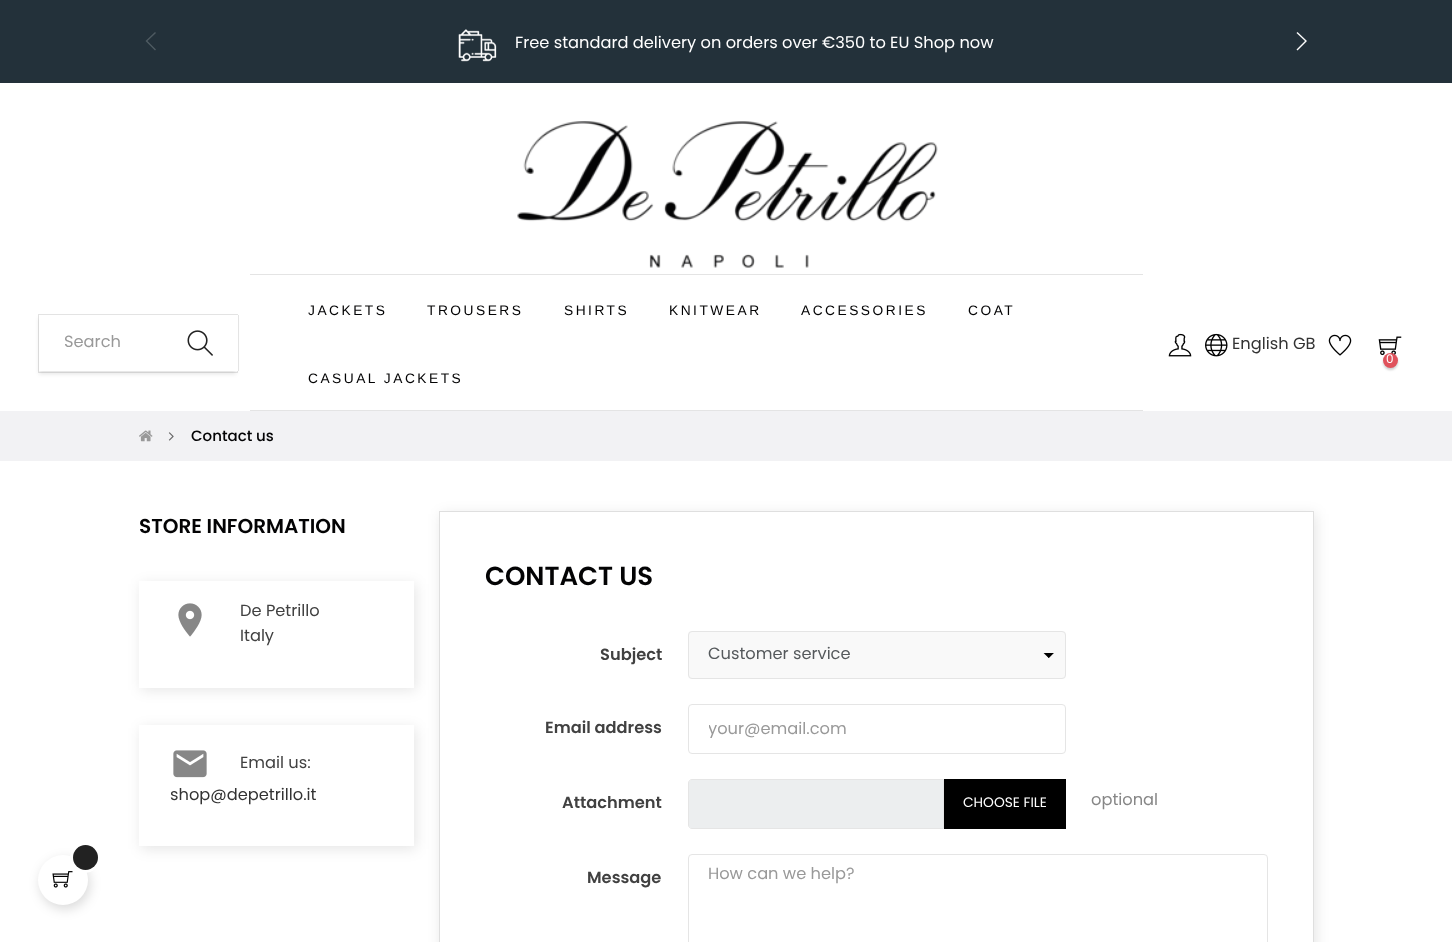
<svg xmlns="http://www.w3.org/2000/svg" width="1452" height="942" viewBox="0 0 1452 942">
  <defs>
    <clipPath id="clip1"><path d="M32 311H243V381H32ZM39 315H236V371H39Z" clip-rule="evenodd"/></clipPath>
    <filter id="blur1" x="-50%" y="-200%" width="200%" height="500%"><feGaussianBlur stdDeviation="2"/></filter>
    <filter id="blur2" x="-50%" y="-200%" width="200%" height="500%"><feGaussianBlur stdDeviation="1"/></filter>
    <filter id="blur3" x="-50%" y="-200%" width="200%" height="500%"><feGaussianBlur stdDeviation="7"/></filter>
    <clipPath id="clip2"><rect x="709" y="721" width="336" height="17"/></clipPath>
    <filter id="blur4" x="-50%" y="-200%" width="200%" height="500%"><feGaussianBlur stdDeviation="6"/></filter>
  </defs>
  <rect width="100%" height="100%" fill="#ffffff"/>
  <rect x="0" y="0" width="1452" height="83" fill="#23313a"/>
  <path d="M147.5 41L156 49.5L155 50.5L145.5 41L155 32L156 33Z" fill="#4e5a61"/>
  <path d="M1307 41L1297.5 50.5L1296.5 49.5L1305 41L1296.5 33L1297.5 32Z" fill="#fcfcfc"/>
  <image x="458" y="29" width="39" height="33" href="img1.png"/>
  <text x="515" y="48" font-family="Poppins" font-size="16.25" fill="#ffffff">Free standard delivery on orders over €350 to EU Shop now</text>
  <image x="517" y="121" width="421" height="147" href="img2.png"/>
  <rect x="38.5" y="314.5" width="199" height="58" fill="none" stroke="#e4e4e4"/>
  <g clip-path="url(#clip1)">
    <rect x="39" y="318" width="197" height="56" fill="#000000" fill-opacity="0.1" filter="url(#blur1)"/>
  </g>
  <text x="64" y="347" font-family="Poppins" font-size="16.25" fill="#999999">Search</text>
  <rect x="236" y="315" width="2" height="56" fill="#ffffff"/>
  <rect x="238" y="315" width="1" height="56" fill="#e4e4e4"/>
  <image x="187" y="330" width="26" height="26" href="img3.png"/>
  <rect x="250" y="274" width="893" height="1" fill="#e4e4e4"/>
  <rect x="250" y="410" width="893" height="1" fill="#e4e4e4"/>
  <text x="308" y="315" font-family="Liberation Sans" font-size="13.75" letter-spacing="2.5" fill="#030304">JACKETS</text>
  <text x="427" y="315" font-family="Liberation Sans" font-size="13.75" letter-spacing="2.5" fill="#030304">TROUSERS</text>
  <text x="564" y="315" font-family="Liberation Sans" font-size="13.75" letter-spacing="2.5" fill="#030304">SHIRTS</text>
  <text x="669" y="315" font-family="Liberation Sans" font-size="13.75" letter-spacing="2.5" fill="#030304">KNITWEAR</text>
  <text x="801" y="315" font-family="Liberation Sans" font-size="13.75" letter-spacing="2.5" fill="#030304">ACCESSORIES</text>
  <text x="968" y="315" font-family="Liberation Sans" font-size="13.75" letter-spacing="2.5" fill="#030304">COAT</text>
  <text x="308" y="383" font-family="Liberation Sans" font-size="13.75" letter-spacing="2.5" fill="#030304">CASUAL JACKETS</text>
  <image x="1168" y="333" width="24" height="24" href="img4.png"/>
  <image x="1205" y="333" width="23" height="24" href="img5.png"/>
  <text x="1232" y="349" font-family="Poppins" font-size="16.25" fill="#333333">English GB</text>
  <image x="1328" y="334" width="24" height="22" href="img6.png"/>
  <image x="1378" y="336" width="24" height="20" href="img7.png"/>
  <rect x="1383" y="355" width="15" height="15" rx="7.5" fill="#000000" fill-opacity="0.2" filter="url(#blur2)"/>
  <circle cx="1390.5" cy="360.5" r="7.5" fill="#e0525c"/>
  <text x="1386" y="363" font-family="Poppins" font-size="12" fill="#ffffff">0</text>
  <rect x="0" y="411" width="1452" height="50" fill="#f2f2f4"/>
  <image x="139" y="430" width="14" height="12" href="img8.png"/>
  <image x="168" y="432" width="6" height="9" href="img9.png"/>
  <text x="191" y="441" font-family="Poppins" font-size="15" font-weight="500" fill="#030304">Contact us</text>
  <text x="139" y="533" font-family="Poppins" font-size="20" font-weight="600" fill="#030304">STORE INFORMATION</text>
  <rect x="141" y="584" width="275" height="106" fill="#000000" fill-opacity="0.1" filter="url(#blur3)"/>
  <rect x="139" y="581" width="275" height="107" fill="#ffffff"/>
  <image x="178" y="603" width="24" height="34" href="img10.png"/>
  <text x="240" y="616" font-family="Poppins" font-size="16.25" fill="#414141">De Petrillo</text>
  <text x="240" y="641" font-family="Poppins" font-size="16.25" fill="#414141">Italy</text>
  <rect x="141" y="728" width="275" height="121" fill="#000000" fill-opacity="0.1" filter="url(#blur3)"/>
  <rect x="139" y="725" width="275" height="121" fill="#ffffff"/>
  <image x="173" y="750" width="34" height="28" href="img11.png"/>
  <text x="240" y="768" font-family="Poppins" font-size="16.25" fill="#414141">Email us:</text>
  <text x="170" y="800" font-family="Poppins" font-size="16.25" fill="#333333">shop@depetrillo.it</text>
  <rect x="441" y="514" width="875" height="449" fill="#000000" fill-opacity="0.1" filter="url(#blur3)"/>
  <rect x="439.5" y="511.5" width="874" height="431" fill="#ffffff" stroke="#dfdfdf"/>
  <text x="485" y="585" font-family="Poppins" font-size="26" font-weight="600" fill="#030304">CONTACT US</text>
  <text x="600" y="660" font-family="Poppins" font-size="16.25" font-weight="600" fill="#414141">Subject</text>
  <rect x="688" y="631" width="378" height="48" rx="4" fill="#f9f9f9"/>
  <image x="1043" y="653" width="11" height="5" href="img12.png"/>
  <rect x="688.5" y="631.5" width="377" height="47" rx="3.5" fill="none" stroke="#e5e5e5"/>
  <text x="708" y="659" font-family="Poppins" font-size="16.25" fill="#55595c">Customer service</text>
  <text x="545" y="733" font-family="Poppins" font-size="16.25" font-weight="600" fill="#414141">Email address</text>
  <rect x="688.5" y="704.5" width="377" height="49" rx="3.5" fill="none" stroke="#e5e5e5"/>
  <g clip-path="url(#clip2)">
    <text x="708" y="734" font-family="Poppins" font-size="16.25" fill="#999999">your@email.com</text>
  </g>
  <text x="562" y="808" font-family="Poppins" font-size="16.25" font-weight="600" fill="#414141">Attachment</text>
  <path d="M691.5 780H943V828H691.5C690 828 689 827 689 825.5V782.5C689 781 690 780 691.5 780Z" fill="#eceeef"/>
  <path d="M692 779.5H943.5V828.5H692C690 828.5 688.5 827 688.5 825V783C688.5 781 690 779.5 692 779.5Z" fill="none" stroke="#e5e5e5"/>
  <rect x="944" y="779" width="122" height="50" fill="#000000"/>
  <text x="963" y="807" font-family="Poppins" font-size="13.75" fill="#ffffff">CHOOSE FILE</text>
  <text x="1091" y="805" font-family="Poppins" font-size="16.25" fill="#878787">optional</text>
  <text x="587" y="883" font-family="Poppins" font-size="16.25" font-weight="600" fill="#414141">Message</text>
  <rect x="688.5" y="854.5" width="579" height="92" rx="3.5" fill="none" stroke="#e5e5e5"/>
  <text x="708" y="879" font-family="Poppins" font-size="16.25" fill="#999999">How can we help?</text>
  <rect x="40" y="859" width="50" height="50" rx="25" fill="#000000" fill-opacity="0.15" filter="url(#blur4)"/>
  <circle cx="63" cy="880" r="25" fill="#ffffff"/>
  <image x="52" y="871" width="21" height="17" href="img13.png"/>
  <circle cx="85" cy="858" r="13.5" fill="none" stroke="#ffffff" stroke-width="3"/>
  <circle cx="85.5" cy="857.5" r="12.5" fill="#222222"/>
</svg>
